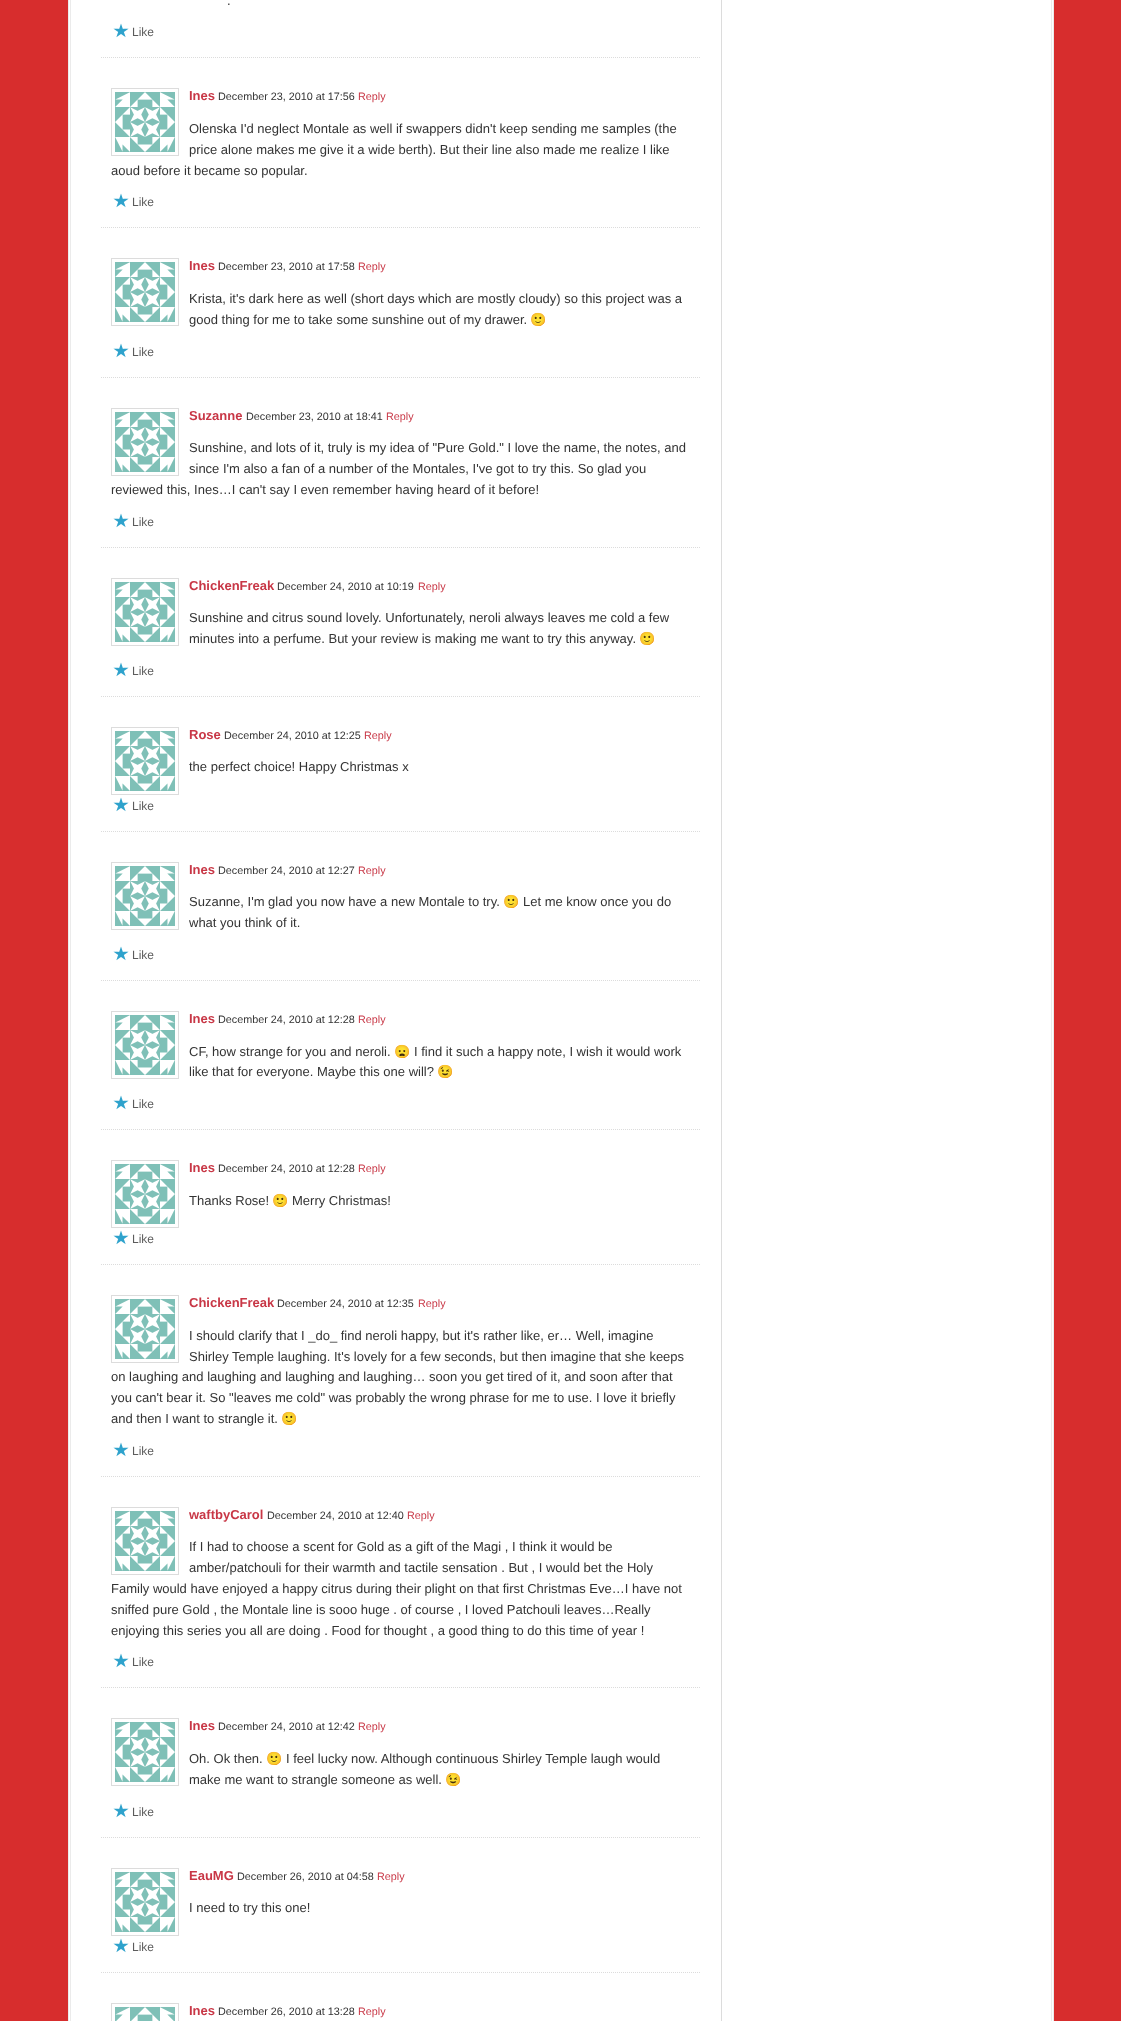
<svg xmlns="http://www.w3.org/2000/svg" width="1121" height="2021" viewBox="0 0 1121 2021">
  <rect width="100%" height="100%" fill="#d72d2d"/>
  <rect x="68.5" y="-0.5" width="985" height="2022" fill="#ffffff" stroke="#ebebeb"/>
  <rect x="70.5" y="-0.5" width="981" height="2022" fill="none" stroke="#ebebeb"/>
  <rect x="721" y="0" width="1" height="2021" fill="#dcdcdc"/>
  <path d="M101 57.5H701" fill="none" stroke="#dcdcdc" stroke-dasharray="1 1"/>
  <text x="227" y="5" font-family="Liberation Sans" font-size="13" fill="#333333">.</text>
  <image x="113" y="23" width="16" height="15" href="img1.png"/>
  <text x="132" y="36" font-family="Liberation Sans" font-size="12" fill="#5c5c5c">Like</text>
  <path d="M101 227.5H701" fill="none" stroke="#dcdcdc" stroke-dasharray="1 1"/>
  <rect x="111.5" y="88.5" width="67" height="67" fill="none" stroke="#dcdcdc"/>
  <image x="115" y="92" width="60" height="60" href="img2.png"/>
  <text x="189" y="100" font-family="Liberation Sans" font-size="13" font-weight="bold" fill="#c83746">Ines</text>
  <text x="218" y="100" font-family="Liberation Sans" font-size="10.8" fill="#333333">December 23, 2010 at 17:56</text>
  <text x="358" y="100" font-family="Liberation Sans" font-size="10.8" fill="#c83746">Reply</text>
  <text x="189" y="133" font-family="Liberation Sans" font-size="13" fill="#333333">Olenska I'd neglect Montale as well if swappers didn't keep sending me samples (the</text>
  <text x="189" y="154" font-family="Liberation Sans" font-size="13" fill="#333333">price alone makes me give it a wide berth). But their line also made me realize I like</text>
  <text x="111" y="175" font-family="Liberation Sans" font-size="13" fill="#333333">aoud before it became so popular.</text>
  <image x="113" y="193" width="16" height="15" href="img1.png"/>
  <text x="132" y="206" font-family="Liberation Sans" font-size="12" fill="#5c5c5c">Like</text>
  <path d="M101 377.5H701" fill="none" stroke="#dcdcdc" stroke-dasharray="1 1"/>
  <rect x="111.5" y="258.5" width="67" height="67" fill="none" stroke="#dcdcdc"/>
  <image x="115" y="262" width="60" height="60" href="img2.png"/>
  <text x="189" y="270" font-family="Liberation Sans" font-size="13" font-weight="bold" fill="#c83746">Ines</text>
  <text x="218" y="270" font-family="Liberation Sans" font-size="10.8" fill="#333333">December 23, 2010 at 17:58</text>
  <text x="358" y="270" font-family="Liberation Sans" font-size="10.8" fill="#c83746">Reply</text>
  <text x="189" y="303" font-family="Liberation Sans" font-size="13" fill="#333333">Krista, it's dark here as well (short days which are mostly cloudy) so this project was a</text>
  <text x="189" y="324" font-family="Liberation Sans" font-size="13" fill="#333333">good thing for me to take some sunshine out of my drawer.</text>
  <text x="530" y="324" font-family="Noto Color Emoji" font-size="13" fill="#333333">🙂</text>
  <image x="113" y="343" width="16" height="15" href="img1.png"/>
  <text x="132" y="356" font-family="Liberation Sans" font-size="12" fill="#5c5c5c">Like</text>
  <path d="M101 547.5H701" fill="none" stroke="#dcdcdc" stroke-dasharray="1 1"/>
  <rect x="111.5" y="408.5" width="67" height="67" fill="none" stroke="#dcdcdc"/>
  <image x="115" y="412" width="60" height="60" href="img2.png"/>
  <text x="189" y="420" font-family="Liberation Sans" font-size="13" font-weight="bold" fill="#c83746">Suzanne</text>
  <text x="246" y="420" font-family="Liberation Sans" font-size="10.8" fill="#333333">December 23, 2010 at 18:41</text>
  <text x="386" y="420" font-family="Liberation Sans" font-size="10.8" fill="#c83746">Reply</text>
  <text x="189" y="452" font-family="Liberation Sans" font-size="13" fill="#333333">Sunshine, and lots of it, truly is my idea of "Pure Gold." I love the name, the notes, and</text>
  <text x="189" y="473" font-family="Liberation Sans" font-size="13" fill="#333333">since I'm also a fan of a number of the Montales, I've got to try this. So glad you</text>
  <text x="111" y="494" font-family="Liberation Sans" font-size="13" fill="#333333">reviewed this, Ines…I can't say I even remember having heard of it before!</text>
  <image x="113" y="513" width="16" height="15" href="img1.png"/>
  <text x="132" y="526" font-family="Liberation Sans" font-size="12" fill="#5c5c5c">Like</text>
  <path d="M101 696.5H701" fill="none" stroke="#dcdcdc" stroke-dasharray="1 1"/>
  <rect x="111.5" y="578.5" width="67" height="67" fill="none" stroke="#dcdcdc"/>
  <image x="115" y="582" width="60" height="60" href="img2.png"/>
  <text x="189" y="590" font-family="Liberation Sans" font-size="13" font-weight="bold" fill="#c83746">ChickenFreak</text>
  <text x="277" y="590" font-family="Liberation Sans" font-size="10.8" fill="#333333">December 24, 2010 at 10:19</text>
  <text x="418" y="590" font-family="Liberation Sans" font-size="10.8" fill="#c83746">Reply</text>
  <text x="189" y="622" font-family="Liberation Sans" font-size="13" fill="#333333">Sunshine and citrus sound lovely. Unfortunately, neroli always leaves me cold a few</text>
  <text x="189" y="643" font-family="Liberation Sans" font-size="13" fill="#333333">minutes into a perfume. But your review is making me want to try this anyway.</text>
  <text x="639" y="643" font-family="Noto Color Emoji" font-size="13" fill="#333333">🙂</text>
  <image x="113" y="662" width="16" height="15" href="img1.png"/>
  <text x="132" y="675" font-family="Liberation Sans" font-size="12" fill="#5c5c5c">Like</text>
  <path d="M101 831.5H701" fill="none" stroke="#dcdcdc" stroke-dasharray="1 1"/>
  <rect x="111.5" y="727.5" width="67" height="67" fill="none" stroke="#dcdcdc"/>
  <image x="115" y="731" width="60" height="60" href="img2.png"/>
  <text x="189" y="739" font-family="Liberation Sans" font-size="13" font-weight="bold" fill="#c83746">Rose</text>
  <text x="224" y="739" font-family="Liberation Sans" font-size="10.8" fill="#333333">December 24, 2010 at 12:25</text>
  <text x="364" y="739" font-family="Liberation Sans" font-size="10.8" fill="#c83746">Reply</text>
  <text x="189" y="771" font-family="Liberation Sans" font-size="13" fill="#333333">the perfect choice! Happy Christmas x</text>
  <image x="113" y="797" width="16" height="15" href="img1.png"/>
  <text x="132" y="810" font-family="Liberation Sans" font-size="12" fill="#5c5c5c">Like</text>
  <path d="M101 980.5H701" fill="none" stroke="#dcdcdc" stroke-dasharray="1 1"/>
  <rect x="111.5" y="862.5" width="67" height="67" fill="none" stroke="#dcdcdc"/>
  <image x="115" y="866" width="60" height="60" href="img2.png"/>
  <text x="189" y="874" font-family="Liberation Sans" font-size="13" font-weight="bold" fill="#c83746">Ines</text>
  <text x="218" y="874" font-family="Liberation Sans" font-size="10.8" fill="#333333">December 24, 2010 at 12:27</text>
  <text x="358" y="874" font-family="Liberation Sans" font-size="10.8" fill="#c83746">Reply</text>
  <text x="189" y="906" font-family="Liberation Sans" font-size="13" fill="#333333">Suzanne, I'm glad you now have a new Montale to try.</text>
  <text x="503" y="906" font-family="Noto Color Emoji" font-size="13" fill="#333333">🙂</text>
  <text x="523" y="906" font-family="Liberation Sans" font-size="13" fill="#333333">Let me know once you do</text>
  <text x="189" y="927" font-family="Liberation Sans" font-size="13" fill="#333333">what you think of it.</text>
  <image x="113" y="946" width="16" height="15" href="img1.png"/>
  <text x="132" y="959" font-family="Liberation Sans" font-size="12" fill="#5c5c5c">Like</text>
  <path d="M101 1129.5H701" fill="none" stroke="#dcdcdc" stroke-dasharray="1 1"/>
  <rect x="111.5" y="1011.5" width="67" height="67" fill="none" stroke="#dcdcdc"/>
  <image x="115" y="1015" width="60" height="60" href="img2.png"/>
  <text x="189" y="1023" font-family="Liberation Sans" font-size="13" font-weight="bold" fill="#c83746">Ines</text>
  <text x="218" y="1023" font-family="Liberation Sans" font-size="10.8" fill="#333333">December 24, 2010 at 12:28</text>
  <text x="358" y="1023" font-family="Liberation Sans" font-size="10.8" fill="#c83746">Reply</text>
  <text x="189" y="1056" font-family="Liberation Sans" font-size="13" fill="#333333">CF, how strange for you and neroli.</text>
  <text x="394" y="1056" font-family="Noto Color Emoji" font-size="13" fill="#333333">😦</text>
  <text x="414" y="1056" font-family="Liberation Sans" font-size="13" fill="#333333">I find it such a happy note, I wish it would work</text>
  <text x="189" y="1076" font-family="Liberation Sans" font-size="13" fill="#333333">like that for everyone. Maybe this one will?</text>
  <text x="437" y="1076" font-family="Noto Color Emoji" font-size="13" fill="#333333">😉</text>
  <image x="113" y="1095" width="16" height="15" href="img1.png"/>
  <text x="132" y="1108" font-family="Liberation Sans" font-size="12" fill="#5c5c5c">Like</text>
  <path d="M101 1264.5H701" fill="none" stroke="#dcdcdc" stroke-dasharray="1 1"/>
  <rect x="111.5" y="1160.5" width="67" height="67" fill="none" stroke="#dcdcdc"/>
  <image x="115" y="1164" width="60" height="60" href="img2.png"/>
  <text x="189" y="1172" font-family="Liberation Sans" font-size="13" font-weight="bold" fill="#c83746">Ines</text>
  <text x="218" y="1172" font-family="Liberation Sans" font-size="10.8" fill="#333333">December 24, 2010 at 12:28</text>
  <text x="358" y="1172" font-family="Liberation Sans" font-size="10.8" fill="#c83746">Reply</text>
  <text x="189" y="1205" font-family="Liberation Sans" font-size="13" fill="#333333">Thanks Rose!</text>
  <text x="272" y="1205" font-family="Noto Color Emoji" font-size="13" fill="#333333">🙂</text>
  <text x="292" y="1205" font-family="Liberation Sans" font-size="13" fill="#333333">Merry Christmas!</text>
  <image x="113" y="1230" width="16" height="15" href="img1.png"/>
  <text x="132" y="1243" font-family="Liberation Sans" font-size="12" fill="#5c5c5c">Like</text>
  <path d="M101 1476.5H701" fill="none" stroke="#dcdcdc" stroke-dasharray="1 1"/>
  <rect x="111.5" y="1295.5" width="67" height="67" fill="none" stroke="#dcdcdc"/>
  <image x="115" y="1299" width="60" height="60" href="img2.png"/>
  <text x="189" y="1307" font-family="Liberation Sans" font-size="13" font-weight="bold" fill="#c83746">ChickenFreak</text>
  <text x="277" y="1307" font-family="Liberation Sans" font-size="10.8" fill="#333333">December 24, 2010 at 12:35</text>
  <text x="418" y="1307" font-family="Liberation Sans" font-size="10.8" fill="#c83746">Reply</text>
  <text x="189" y="1340" font-family="Liberation Sans" font-size="13" fill="#333333">I should clarify that I _do_ find neroli happy, but it's rather like, er… Well, imagine</text>
  <text x="189" y="1361" font-family="Liberation Sans" font-size="13" fill="#333333">Shirley Temple laughing. It's lovely for a few seconds, but then imagine that she keeps</text>
  <text x="111" y="1381" font-family="Liberation Sans" font-size="13" fill="#333333">on laughing and laughing and laughing and laughing… soon you get tired of it, and soon after that</text>
  <text x="111" y="1402" font-family="Liberation Sans" font-size="13" fill="#333333">you can't bear it. So "leaves me cold" was probably the wrong phrase for me to use. I love it briefly</text>
  <text x="111" y="1423" font-family="Liberation Sans" font-size="13" fill="#333333">and then I want to strangle it.</text>
  <text x="281" y="1423" font-family="Noto Color Emoji" font-size="13" fill="#333333">🙂</text>
  <image x="113" y="1442" width="16" height="15" href="img1.png"/>
  <text x="132" y="1455" font-family="Liberation Sans" font-size="12" fill="#5c5c5c">Like</text>
  <path d="M101 1687.5H701" fill="none" stroke="#dcdcdc" stroke-dasharray="1 1"/>
  <rect x="111.5" y="1507.5" width="67" height="67" fill="none" stroke="#dcdcdc"/>
  <image x="115" y="1511" width="60" height="60" href="img2.png"/>
  <text x="189" y="1519" font-family="Liberation Sans" font-size="13" font-weight="bold" fill="#c83746">waftbyCarol</text>
  <text x="267" y="1519" font-family="Liberation Sans" font-size="10.8" fill="#333333">December 24, 2010 at 12:40</text>
  <text x="407" y="1519" font-family="Liberation Sans" font-size="10.8" fill="#c83746">Reply</text>
  <text x="189" y="1551" font-family="Liberation Sans" font-size="13" fill="#333333">If I had to choose a scent for Gold as a gift of the Magi , I think it would be</text>
  <text x="189" y="1572" font-family="Liberation Sans" font-size="13" fill="#333333">amber/patchouli for their warmth and tactile sensation . But , I would bet the Holy</text>
  <text x="111" y="1593" font-family="Liberation Sans" font-size="13" fill="#333333">Family would have enjoyed a happy citrus during their plight on that first Christmas Eve…I have not</text>
  <text x="111" y="1614" font-family="Liberation Sans" font-size="13" fill="#333333">sniffed pure Gold , the Montale line is sooo huge . of course , I loved Patchouli leaves…Really</text>
  <text x="111" y="1635" font-family="Liberation Sans" font-size="13" fill="#333333">enjoying this series you all are doing . Food for thought , a good thing to do this time of year !</text>
  <image x="113" y="1653" width="16" height="15" href="img1.png"/>
  <text x="132" y="1666" font-family="Liberation Sans" font-size="12" fill="#5c5c5c">Like</text>
  <path d="M101 1837.5H701" fill="none" stroke="#dcdcdc" stroke-dasharray="1 1"/>
  <rect x="111.5" y="1718.5" width="67" height="67" fill="none" stroke="#dcdcdc"/>
  <image x="115" y="1722" width="60" height="60" href="img2.png"/>
  <text x="189" y="1730" font-family="Liberation Sans" font-size="13" font-weight="bold" fill="#c83746">Ines</text>
  <text x="218" y="1730" font-family="Liberation Sans" font-size="10.8" fill="#333333">December 24, 2010 at 12:42</text>
  <text x="358" y="1730" font-family="Liberation Sans" font-size="10.8" fill="#c83746">Reply</text>
  <text x="189" y="1763" font-family="Liberation Sans" font-size="13" fill="#333333">Oh. Ok then.</text>
  <text x="266" y="1763" font-family="Noto Color Emoji" font-size="13" fill="#333333">🙂</text>
  <text x="286" y="1763" font-family="Liberation Sans" font-size="13" fill="#333333">I feel lucky now. Although continuous Shirley Temple laugh would</text>
  <text x="189" y="1784" font-family="Liberation Sans" font-size="13" fill="#333333">make me want to strangle someone as well.</text>
  <text x="445" y="1784" font-family="Noto Color Emoji" font-size="13" fill="#333333">😉</text>
  <image x="113" y="1803" width="16" height="15" href="img1.png"/>
  <text x="132" y="1816" font-family="Liberation Sans" font-size="12" fill="#5c5c5c">Like</text>
  <path d="M101 1972.5H701" fill="none" stroke="#dcdcdc" stroke-dasharray="1 1"/>
  <rect x="111.5" y="1868.5" width="67" height="67" fill="none" stroke="#dcdcdc"/>
  <image x="115" y="1872" width="60" height="60" href="img2.png"/>
  <text x="189" y="1880" font-family="Liberation Sans" font-size="13" font-weight="bold" fill="#c83746">EauMG</text>
  <text x="237" y="1880" font-family="Liberation Sans" font-size="10.8" fill="#333333">December 26, 2010 at 04:58</text>
  <text x="377" y="1880" font-family="Liberation Sans" font-size="10.8" fill="#c83746">Reply</text>
  <text x="189" y="1912" font-family="Liberation Sans" font-size="13" fill="#333333">I need to try this one!</text>
  <image x="113" y="1938" width="16" height="15" href="img1.png"/>
  <text x="132" y="1951" font-family="Liberation Sans" font-size="12" fill="#5c5c5c">Like</text>
  <rect x="111.5" y="2003.5" width="67" height="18" fill="none" stroke="#dcdcdc"/>
  <image x="115" y="2007" width="60" height="14" href="img3.png"/>
  <text x="189" y="2015" font-family="Liberation Sans" font-size="13" font-weight="bold" fill="#c83746">Ines</text>
  <text x="218" y="2015" font-family="Liberation Sans" font-size="10.8" fill="#333333">December 26, 2010 at 13:28</text>
  <text x="358" y="2015" font-family="Liberation Sans" font-size="10.8" fill="#c83746">Reply</text>
</svg>
